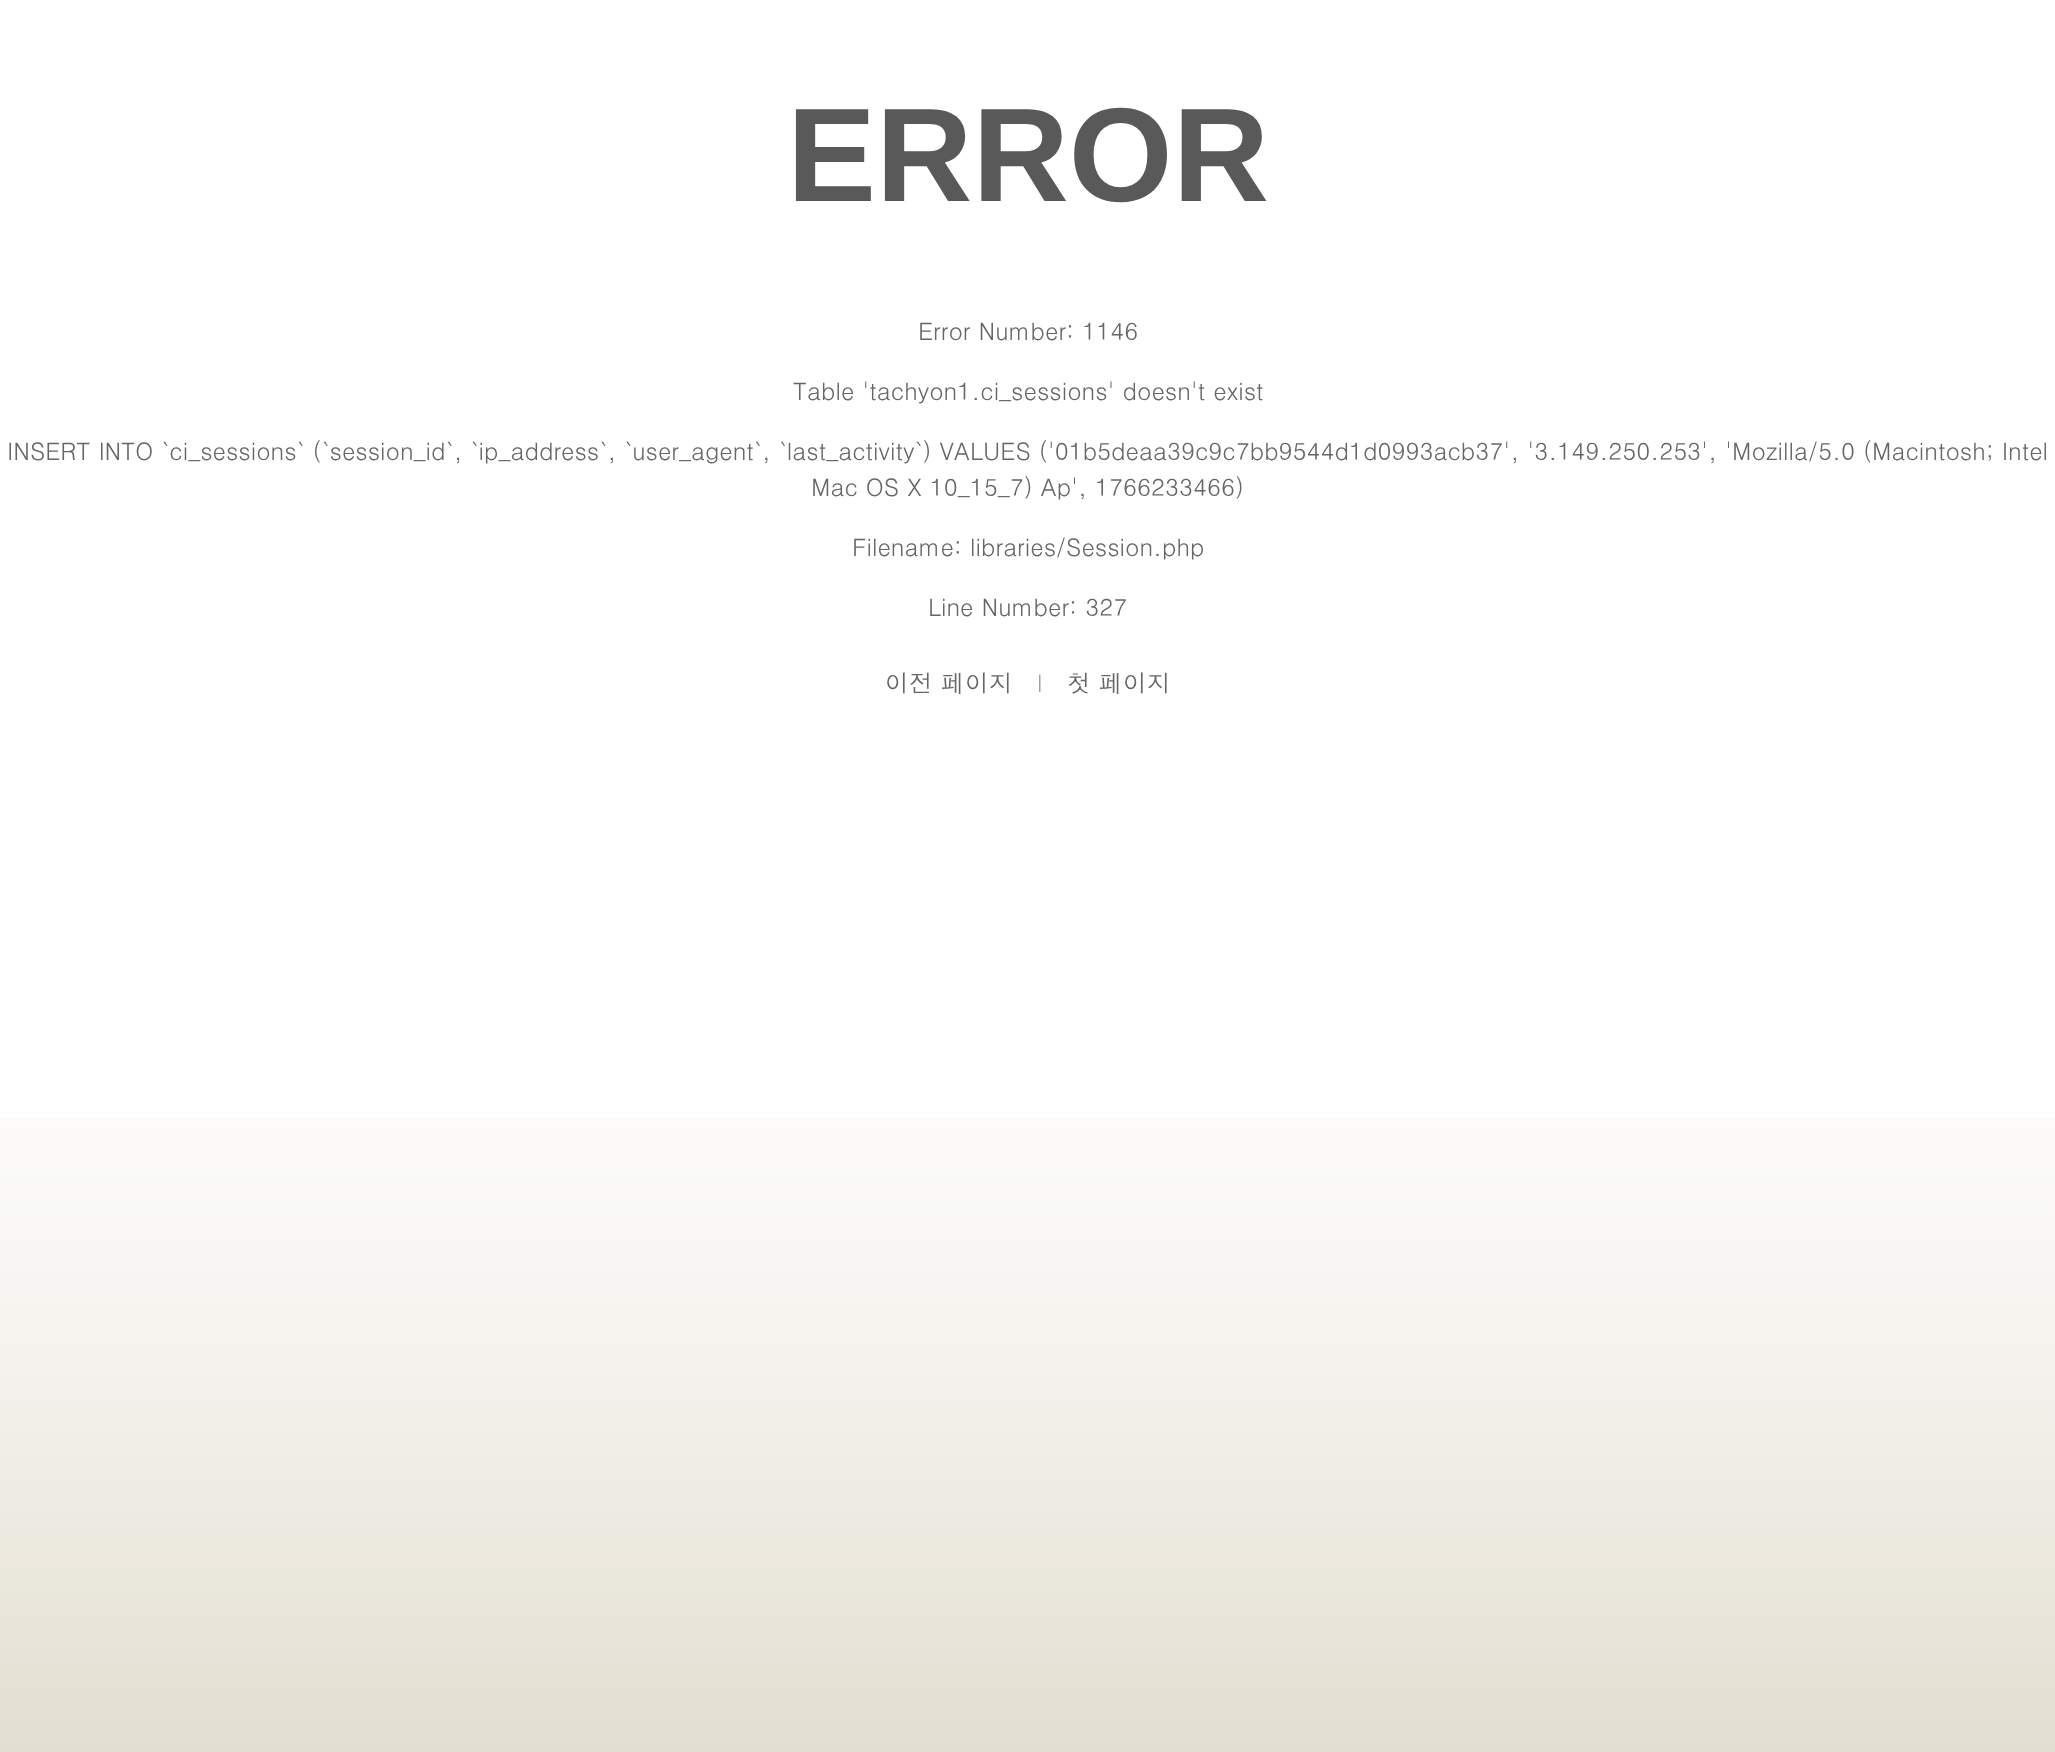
<svg xmlns="http://www.w3.org/2000/svg" width="2055" height="1752" viewBox="0 0 2055 1752">
  <rect width="100%" height="100%" fill="#ffffff"/>
  <text x="787" y="201" font-family="Liberation Sans" font-size="133.5" font-weight="bold" fill="#595959">ERROR</text>
  <text x="918" y="340" font-family="Dotum" font-size="24" fill="#666666">Error Number: 1146</text>
  <text x="793" y="400" font-family="Dotum" font-size="24" fill="#666666">Table 'tachyon1.ci_sessions' doesn't exist</text>
  <text x="7" y="460" font-family="Dotum" font-size="24" fill="#666666">INSERT INTO `ci_sessions` (`session_id`, `ip_address`, `user_agent`, `last_activity`) VALUES ('01b5deaa39c9c7bb9544d1d0993acb37', '3.149.250.253', 'Mozilla/5.0 (Macintosh; Intel</text>
  <text x="811" y="496" font-family="Dotum" font-size="24" fill="#666666">Mac OS X 10_15_7) Ap', 1766233466)</text>
  <text x="852" y="556" font-family="Dotum" font-size="24" fill="#666666">Filename: libraries/Session.php</text>
  <text x="928" y="616" font-family="Dotum" font-size="24" fill="#666666">Line Number: 327</text>
  <text x="885" y="692" font-family="Dotum" font-size="24" fill="#666666">이전 페이지</text>
  <text x="1037" y="692" font-family="Dotum" font-size="24" fill="#a0a0a0">l</text>
  <text x="1067" y="692" font-family="Dotum" font-size="24" fill="#666666">첫 페이지</text>
  <image x="0" y="1117" width="2055" height="635" href="img1.png"/>
</svg>
